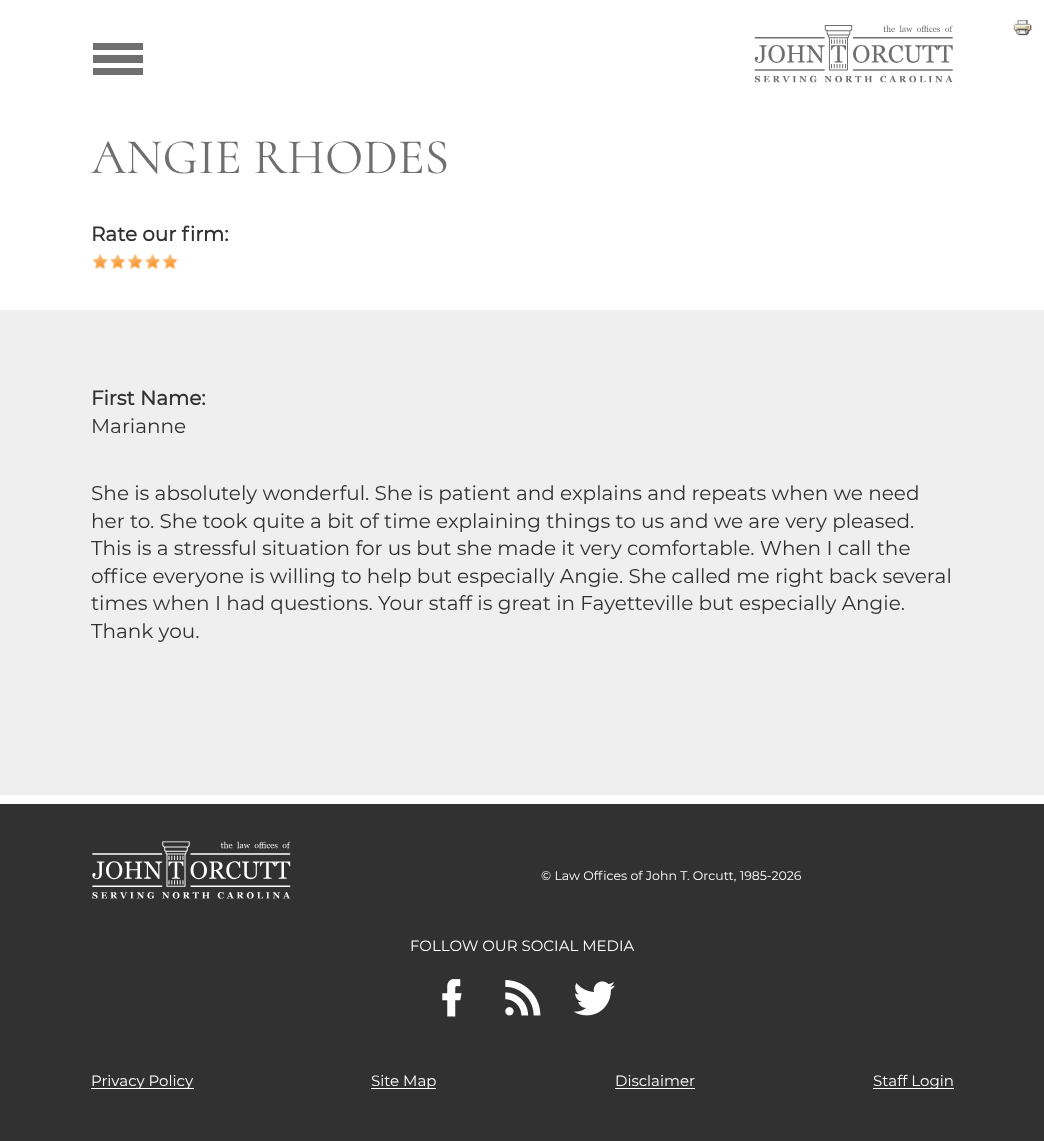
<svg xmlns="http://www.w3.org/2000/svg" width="1044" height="1141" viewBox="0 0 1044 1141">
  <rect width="100%" height="100%" fill="#ffffff"/>
  <rect x="93" y="55" width="50" height="8" fill="#6f6f6f"/>
  <rect x="93" y="43" width="50" height="7" fill="#6f6f6f"/>
  <rect x="93" y="68" width="50" height="7" fill="#6f6f6f"/>
  <image x="754" y="25" width="199" height="58" href="img1.png"/>
  <text x="91" y="173" font-family="Cormorant Infant" font-size="50" fill="#6f6f6f">ANGIE RHODES</text>
  <text x="91" y="241" font-family="Montserrat" font-size="20" font-weight="bold" fill="#313131">Rate our firm:</text>
  <image x="92" y="253" width="16" height="16" href="img2.png"/>
  <image x="110" y="253" width="16" height="16" href="img3.png"/>
  <image x="127" y="253" width="16" height="16" href="img2.png"/>
  <image x="145" y="253" width="16" height="16" href="img3.png"/>
  <image x="162" y="253" width="16" height="16" href="img2.png"/>
  <rect x="0" y="310" width="1044" height="485" fill="#efefef"/>
  <image x="1013" y="19" width="19" height="17" href="img4.png"/>
  <text x="91" y="405" font-family="Montserrat" font-size="20" font-weight="bold" fill="#313131">First Name:</text>
  <text x="91" y="433" font-family="Montserrat" font-size="20" fill="#313131">Marianne</text>
  <text x="91" y="500" font-family="Montserrat" font-size="20" fill="#313131">She is absolutely wonderful. She is patient and explains and repeats when we need</text>
  <text x="91" y="528" font-family="Montserrat" font-size="20" fill="#313131">her to. She took quite a bit of time explaining things to us and we are very pleased.</text>
  <text x="91" y="555" font-family="Montserrat" font-size="20" fill="#313131">This is a stressful situation for us but she made it very comfortable. When I call the</text>
  <text x="91" y="583" font-family="Montserrat" font-size="20" fill="#313131">office everyone is willing to help but especially Angie. She called me right back several</text>
  <text x="91" y="610" font-family="Montserrat" font-size="20" fill="#313131">times when I had questions. Your staff is great in Fayetteville but especially Angie.</text>
  <text x="91" y="638" font-family="Montserrat" font-size="20" fill="#313131">Thank you.</text>
  <rect x="0" y="804" width="1044" height="337" fill="#313131"/>
  <image x="92" y="841" width="199" height="58" href="img5.png"/>
  <text x="541" y="880" font-family="Montserrat" font-size="12.5" fill="#ffffff">© Law Offices of John T. Orcutt, 1985-2026</text>
  <text x="410" y="951" font-family="Montserrat" font-size="15" fill="#ffffff">FOLLOW OUR SOCIAL MEDIA</text>
  <image x="442" y="979" width="20" height="38" href="img6.png"/>
  <image x="505" y="980" width="36" height="36" href="img7.png"/>
  <image x="573" y="981" width="42" height="35" href="img8.png"/>
  <rect x="91" y="1088" width="103" height="1" fill="#ffffff"/>
  <text x="91" y="1086" font-family="Montserrat" font-size="15" fill="#ffffff">Privacy Policy</text>
  <rect x="371" y="1088" width="65" height="1" fill="#ffffff"/>
  <text x="371" y="1086" font-family="Montserrat" font-size="15" fill="#ffffff">Site Map</text>
  <text x="615" y="1086" font-family="Montserrat" font-size="15" fill="#ffffff">Disclaimer</text>
  <rect x="615" y="1088" width="80" height="1" fill="#ffffff"/>
  <rect x="873" y="1088" width="81" height="1" fill="#ffffff"/>
  <text x="873" y="1086" font-family="Montserrat" font-size="15" fill="#ffffff">Staff Login</text>
</svg>
